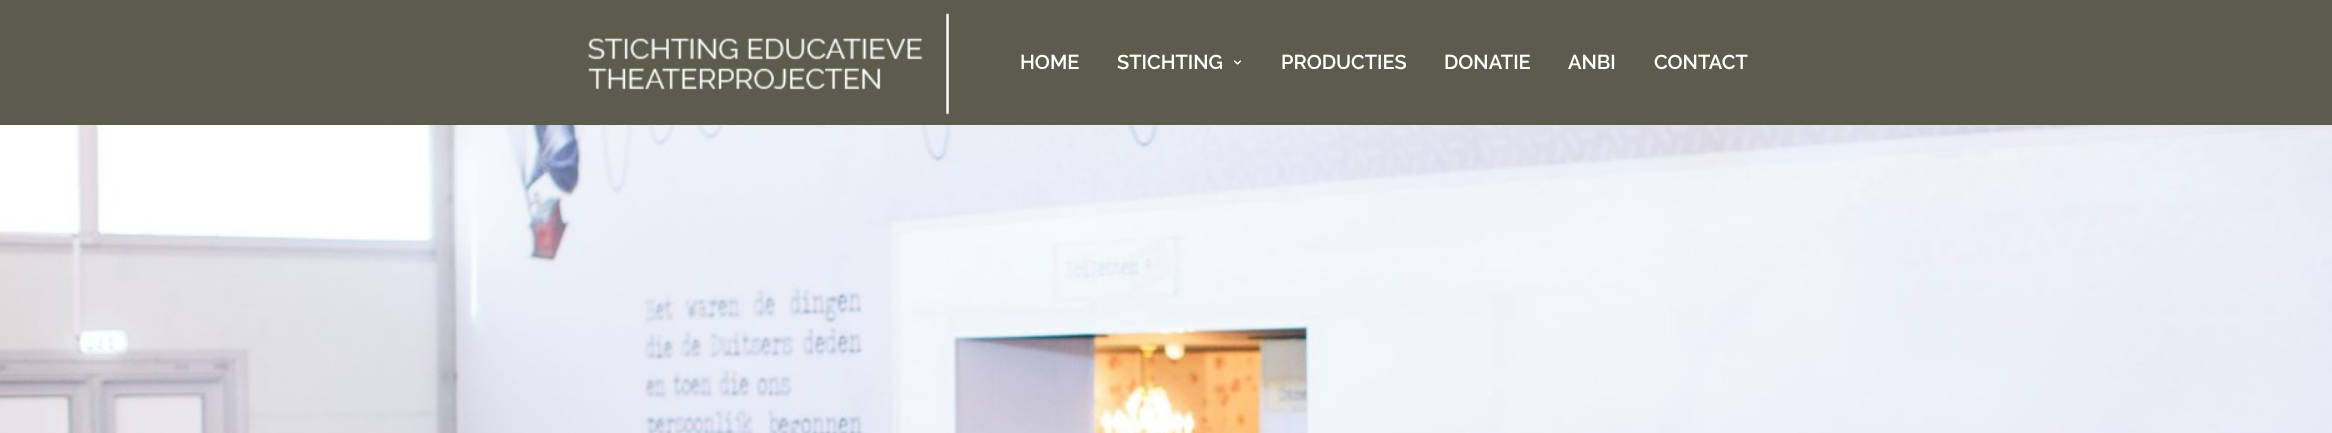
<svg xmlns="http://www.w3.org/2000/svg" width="2332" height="433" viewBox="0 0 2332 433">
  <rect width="100%" height="100%" fill="#ffffff"/>
  <rect x="0" y="0" width="2332" height="125" fill="#5b5c4c"/>
  <image x="587" y="13" width="362" height="102" href="img1.png"/>
  <text x="1020" y="69" font-family="Raleway" font-size="20" font-weight="600" fill="#ffffff">HOME</text>
  <text x="1117" y="69" font-family="Raleway" font-size="20" font-weight="600" fill="#ffffff">STICHTING</text>
  <image x="1233" y="60" width="9" height="5" href="img2.png"/>
  <text x="1281" y="69" font-family="Raleway" font-size="20" font-weight="600" fill="#ffffff">PRODUCTIES</text>
  <text x="1444" y="69" font-family="Raleway" font-size="20" font-weight="600" fill="#ffffff">DONATIE</text>
  <text x="1568" y="69" font-family="Raleway" font-size="20" font-weight="600" fill="#ffffff">ANBI</text>
  <text x="1654" y="69" font-family="Raleway" font-size="20" font-weight="600" fill="#ffffff">CONTACT</text>
  <image x="0" y="125" width="2332" height="308" href="img3.png"/>
</svg>
